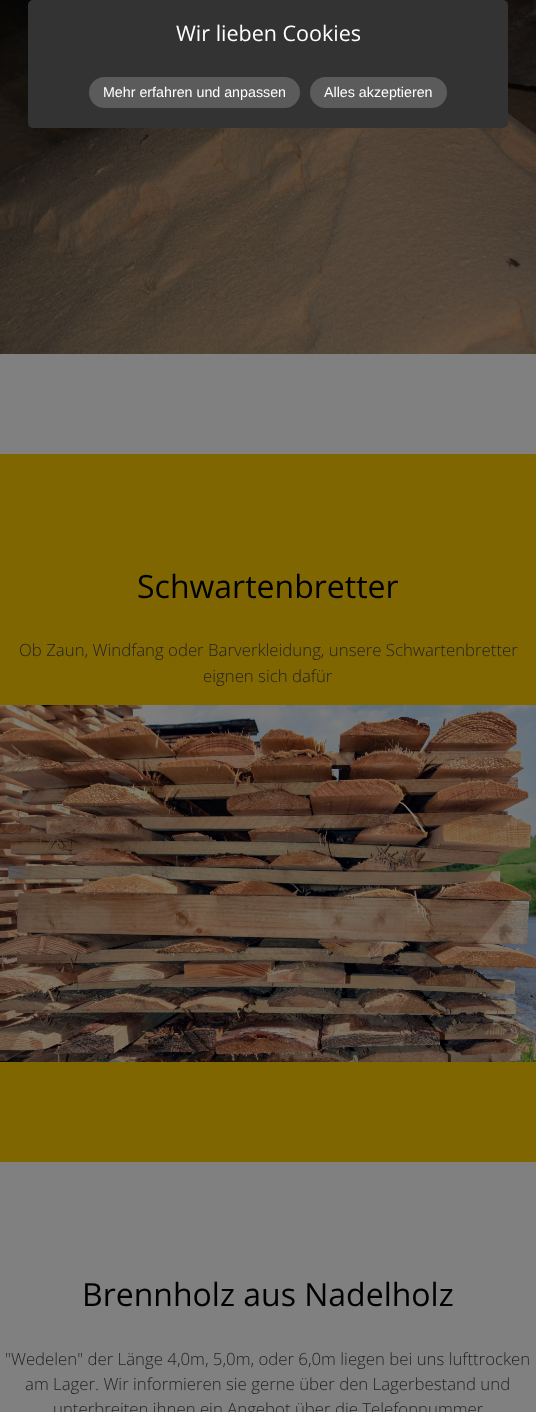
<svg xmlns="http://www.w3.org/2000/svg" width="536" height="1412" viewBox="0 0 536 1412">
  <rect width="100%" height="100%" fill="#806600"/>
  <image x="0" y="0" width="536" height="354" href="img1.png"/>
  <rect x="28" y="0" width="480" height="128" rx="5" fill="#333333"/>
  <text x="176" y="41" font-family="Open Sans" font-size="21.5" fill="#ffffff">Wir lieben Cookies</text>
  <rect x="89" y="77" width="211" height="31" rx="15.5" fill="#5b5b5b"/>
  <text x="103" y="97" font-family="Liberation Sans" font-size="14.25" fill="#ffffff">Mehr erfahren und anpassen</text>
  <rect x="310" y="77" width="137" height="31" rx="15.5" fill="#5b5b5b"/>
  <text x="324" y="97" font-family="Liberation Sans" font-size="14.25" fill="#ffffff">Alles akzeptieren</text>
  <rect x="0" y="354" width="536" height="100" fill="#808080"/>
  <text x="137" y="598" font-family="Open Sans" font-size="32" fill="#000000">Schwartenbretter</text>
  <text x="19" y="656" font-family="Open Sans" font-size="16.8" font-weight="300" fill="#222222">Ob Zaun, Windfang oder Barverkleidung, unsere Schwartenbretter</text>
  <text x="203" y="682" font-family="Open Sans" font-size="16.8" font-weight="300" fill="#222222">eignen sich dafür</text>
  <image x="0" y="705" width="536" height="357" href="img2.png"/>
  <rect x="0" y="1162" width="536" height="250" fill="#808080"/>
  <text x="82" y="1306" font-family="Open Sans" font-size="32" fill="#000000">Brennholz aus Nadelholz</text>
  <text x="5" y="1365" font-family="Open Sans" font-size="16.8" font-weight="300" fill="#222222">"Wedelen" der Länge 4,0m, 5,0m, oder 6,0m liegen bei uns lufttrocken</text>
  <text x="25" y="1390" font-family="Open Sans" font-size="16.8" font-weight="300" fill="#222222">am Lager. Wir informieren sie gerne über den Lagerbestand und</text>
  <text x="53" y="1415" font-family="Open Sans" font-size="16.8" font-weight="300" fill="#222222">unterbreiten ihnen ein Angebot über die Telefonnummer</text>
</svg>
